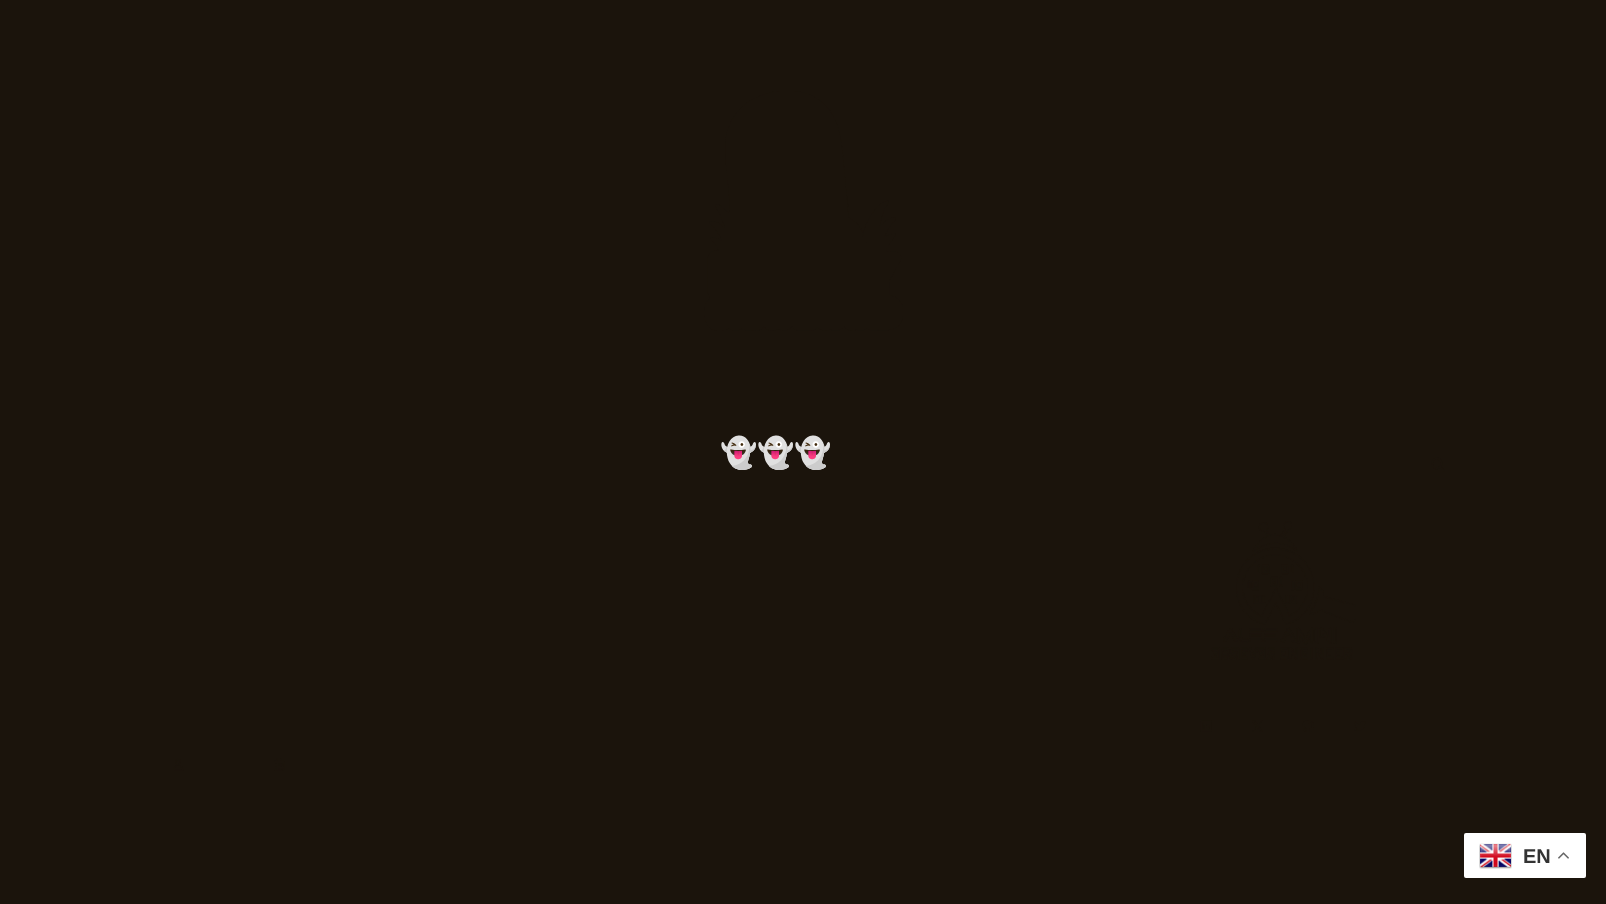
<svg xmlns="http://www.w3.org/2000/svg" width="1606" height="904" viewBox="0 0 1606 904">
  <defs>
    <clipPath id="clip1"><rect x="720" y="430" width="112" height="45"/></clipPath>
  </defs>
  <rect width="100%" height="100%" fill="#1b140c"/>
  <image x="704" y="91" width="199" height="240" href="img1.png"/>
  <image x="1431" y="457" width="14" height="15" href="img2.png"/>
  <g clip-path="url(#clip1)">
    <text x="720" y="463" font-family="Noto Color Emoji" font-size="30" font-weight="bold" fill="#fda93c">👻👻👻</text>
  </g>
  <image x="1211" y="521" width="145" height="139" href="img3.png"/>
  <image x="1200" y="720" width="12" height="12" href="img4.png"/>
  <image x="1252" y="720" width="11" height="12" href="img5.png"/>
  <image x="1302" y="720" width="12" height="12" href="img6.png"/>
  <image x="1354" y="721" width="12" height="10" href="img7.png"/>
  <image x="173" y="758" width="11" height="13" href="img8.png"/>
  <image x="274" y="758" width="11" height="13" href="img9.png"/>
  <rect x="1464" y="833" width="122" height="45" rx="2" fill="#ffffff"/>
  <image x="1479" y="843" width="33" height="26" href="img10.png"/>
  <text x="1523" y="863" font-family="Liberation Sans" font-size="20" font-weight="bold" fill="#333333">EN</text>
  <image x="1558" y="852" width="11" height="7" href="img11.png"/>
</svg>
